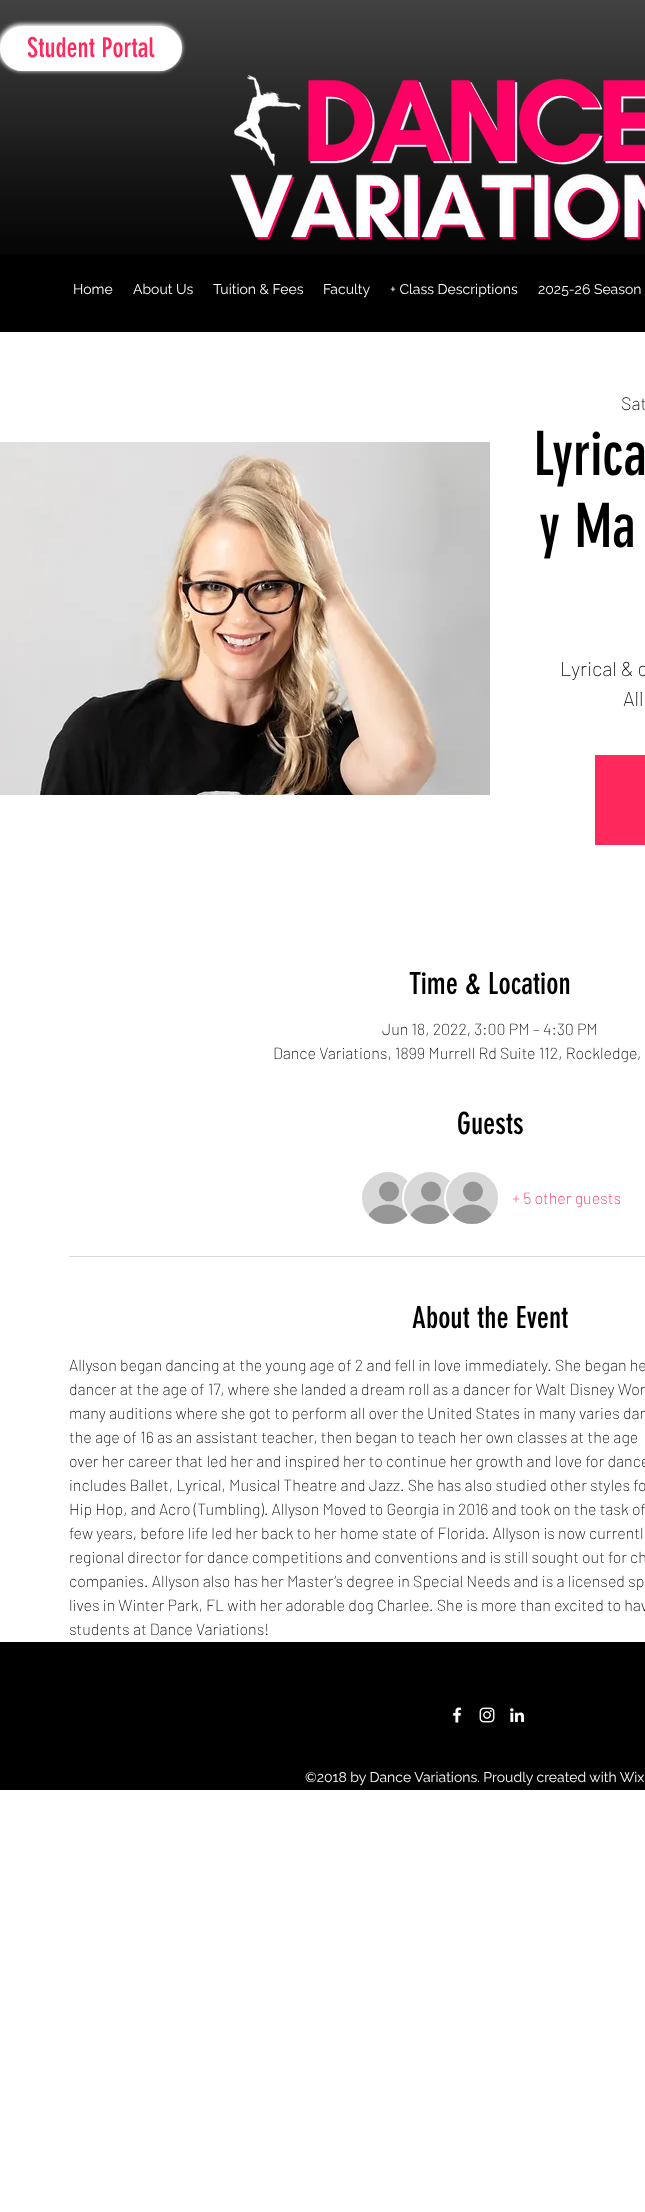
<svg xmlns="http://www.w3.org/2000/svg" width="645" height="2212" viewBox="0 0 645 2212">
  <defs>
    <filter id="blur1" x="-50%" y="-200%" width="200%" height="500%"><feGaussianBlur stdDeviation="2"/></filter>
  </defs>
  <rect width="100%" height="100%" fill="#ffffff"/>
  <rect x="0" y="0" width="645" height="332" fill="#000000"/>
  <image x="0" y="0" width="645" height="254" href="img1.png"/>
  <rect x="-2" y="24" width="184" height="47" rx="23.5" fill="#ffffff" filter="url(#blur1)"/>
  <rect x="1" y="27" width="180" height="43" rx="21.5" fill="#ffffff" stroke="#ffffff" stroke-width="2"/>
  <text x="27" y="57" font-family="'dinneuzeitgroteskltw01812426'" font-size="27" fill="#ff295d">Student Portal</text>
  <image x="230" y="75" width="415" height="167" href="img2.png"/>
  <text x="73" y="294" font-family="Raleway" font-size="14" fill="#ffffff">Home</text>
  <text x="133" y="294" font-family="Raleway" font-size="14" fill="#ffffff">About Us</text>
  <text x="213" y="294" font-family="Raleway" font-size="14" fill="#ffffff">Tuition &amp; Fees</text>
  <text x="323" y="294" font-family="Raleway" font-size="14" fill="#ffffff">Faculty</text>
  <text x="390" y="294" font-family="Raleway" font-size="14" fill="#ffffff">+ Class Descriptions</text>
  <text x="538" y="294" font-family="Raleway" font-size="14" fill="#ffffff">2025-26 Season</text>
  <image x="0" y="442" width="490" height="353" href="img3.png"/>
  <text x="621" y="410" font-family="Barlow" font-size="18" font-weight="200" fill="#000000">Sat</text>
  <text x="533" y="475" font-family="'dinneuzeitgroteskltw01812426'" font-size="60" fill="#000000">Lyrica</text>
  <text x="539" y="547" font-family="'dinneuzeitgroteskltw01812426'" font-size="60" fill="#000000">y Ma</text>
  <text x="560" y="676" font-family="Barlow" font-size="20" font-weight="200" fill="#000000">Lyrical &amp; c</text>
  <text x="623" y="706" font-family="Barlow" font-size="20" font-weight="200" fill="#000000">All</text>
  <rect x="595" y="755" width="50" height="90" fill="#ff295d"/>
  <text x="409" y="994" font-family="'dinneuzeitgroteskltw01812426'" font-size="30" fill="#000000">Time &amp; Location</text>
  <text x="382" y="1035" font-family="Barlow" font-size="16" font-weight="200" fill="#000000">Jun 18, 2022, 3:00 PM – 4:30 PM</text>
  <text x="273" y="1059" font-family="Barlow" font-size="16" font-weight="200" fill="#000000">Dance Variations, 1899 Murrell Rd Suite 112, Rockledge,</text>
  <text x="457" y="1134" font-family="'dinneuzeitgroteskltw01812426'" font-size="30" fill="#000000">Guests</text>
  <circle cx="388" cy="1198" r="27" fill="#d8d8d8" stroke="#ffffff" stroke-width="2"/>
  <circle cx="389" cy="1191.5" r="10" fill="#969696"/>
  <path d="M407.5 1215C397.5 1227 378.5 1227 368.5 1215C377 1201 399 1201 407.5 1215Z" fill="#969696"/>
  <circle cx="430" cy="1198" r="27" fill="#d8d8d8" stroke="#ffffff" stroke-width="2"/>
  <circle cx="431" cy="1191.5" r="10" fill="#969696"/>
  <path d="M449.5 1215C439.5 1227 420.5 1227 410.5 1215C419 1201 441 1201 449.5 1215Z" fill="#969696"/>
  <circle cx="472" cy="1198" r="27" fill="#d8d8d8" stroke="#ffffff" stroke-width="2"/>
  <circle cx="473" cy="1191.5" r="10" fill="#969696"/>
  <path d="M491.5 1215C481.5 1227 462.5 1227 452.5 1215C461 1201 483 1201 491.5 1215Z" fill="#969696"/>
  <text x="512" y="1204" font-family="Barlow" font-size="16" font-weight="200" fill="#ff295d">+ 5 other guests</text>
  <rect x="69" y="1256" width="576" height="1" fill="#d9d9d9"/>
  <text x="412" y="1328" font-family="'dinneuzeitgroteskltw01812426'" font-size="30" fill="#000000">About the Event</text>
  <text x="69" y="1371" font-family="Barlow" font-size="16" font-weight="200" fill="#000000">Allyson began dancing at the young age of 2 and fell in love immediately. She began he</text>
  <text x="69" y="1395" font-family="Barlow" font-size="16" font-weight="200" fill="#000000">dancer at the age of 17, where she landed a dream roll as a dancer for Walt Disney Wor</text>
  <text x="69" y="1419" font-family="Barlow" font-size="16" font-weight="200" fill="#000000">many auditions where she got to perform all over the United States in many varies dan</text>
  <text x="69" y="1443" font-family="Barlow" font-size="16" font-weight="200" fill="#000000">the age of 16 as an assistant teacher, then began to teach her own classes at the age</text>
  <text x="69" y="1467" font-family="Barlow" font-size="16" font-weight="200" fill="#000000">over her career that led her and inspired her to continue her growth and love for dance</text>
  <text x="69" y="1491" font-family="Barlow" font-size="16" font-weight="200" fill="#000000">includes Ballet, Lyrical, Musical Theatre and Jazz. She has also studied other styles fo</text>
  <text x="69" y="1515" font-family="Barlow" font-size="16" font-weight="200" fill="#000000">Hip Hop, and Acro (Tumbling). Allyson Moved to Georgia in 2016 and took on the task of</text>
  <text x="69" y="1539" font-family="Barlow" font-size="16" font-weight="200" fill="#000000">few years, before life led her back to her home state of Florida. Allyson is now currentl</text>
  <text x="69" y="1563" font-family="Barlow" font-size="16" font-weight="200" fill="#000000">regional director for dance competitions and conventions and is still sought out for ch</text>
  <text x="69" y="1587" font-family="Barlow" font-size="16" font-weight="200" fill="#000000">companies. Allyson also has her Master’s degree in Special Needs and is a licensed sp</text>
  <text x="69" y="1611" font-family="Barlow" font-size="16" font-weight="200" fill="#000000">lives in Winter Park, FL with her adorable dog Charlee. She is more than excited to hav</text>
  <text x="69" y="1635" font-family="Barlow" font-size="16" font-weight="200" fill="#000000">students at Dance Variations!</text>
  <rect x="0" y="1642" width="645" height="148" fill="#000000"/>
  <image x="453" y="1707" width="9" height="16" href="img4.png"/>
  <image x="479" y="1707" width="16" height="16" href="img5.png"/>
  <image x="510" y="1708" width="15" height="15" href="img6.png"/>
  <text x="305" y="1782" font-family="Raleway" font-size="14" fill="#ffffff">©2018 by Dance Variations. Proudly created with Wix</text>
</svg>
